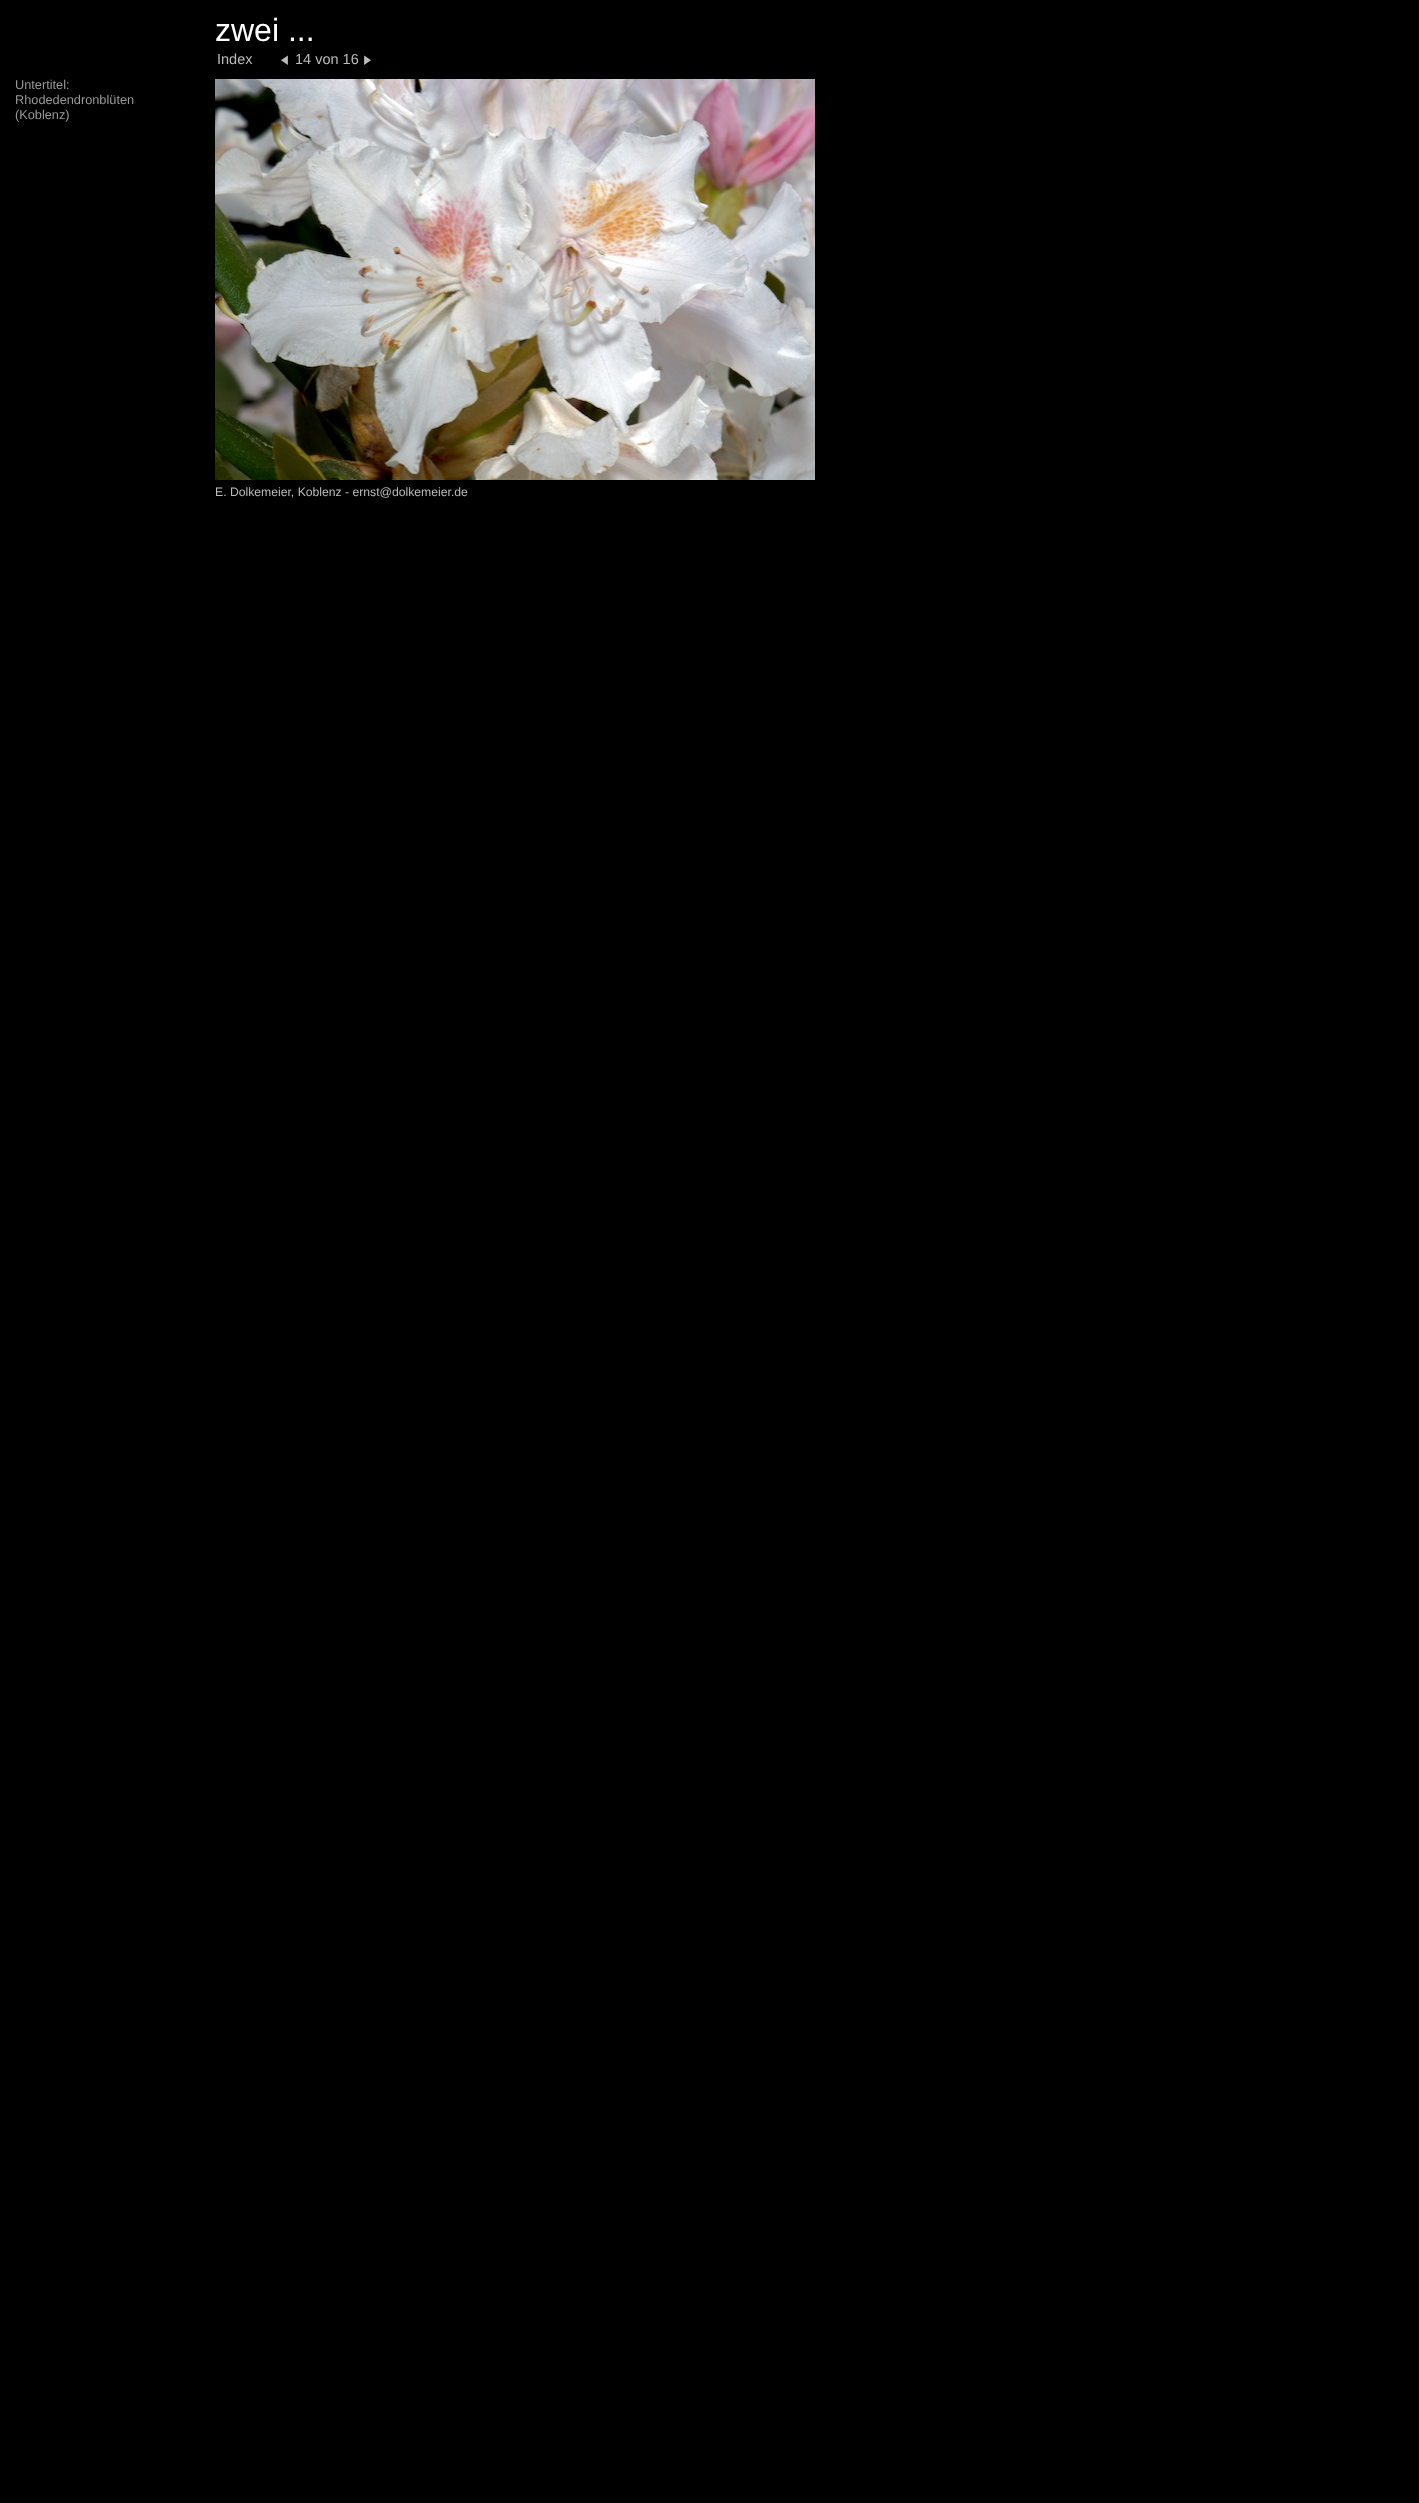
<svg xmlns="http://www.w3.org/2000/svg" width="1419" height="2503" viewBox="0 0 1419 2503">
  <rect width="100%" height="100%" fill="#000000"/>
  <text x="215" y="41" font-family="Liberation Sans" font-size="32" fill="#ffffff">zwei ...</text>
  <text x="217" y="64" font-family="Liberation Sans" font-size="14.5" fill="#bbbbbb">Index</text>
  <image x="281" y="55" width="7" height="10" href="img1.png"/>
  <text x="295" y="64" font-family="Liberation Sans" font-size="14.5" fill="#bbbbbb">14 von 16</text>
  <image x="364" y="55" width="7" height="10" href="img2.png"/>
  <text x="15" y="89" font-family="Liberation Sans" font-size="12.75" fill="#999999">Untertitel:</text>
  <text x="15" y="104" font-family="Liberation Sans" font-size="12.75" fill="#999999">Rhodedendronblüten</text>
  <text x="15" y="119" font-family="Liberation Sans" font-size="12.75" fill="#999999">(Koblenz)</text>
  <image x="215" y="79" width="600" height="401" href="img3.png"/>
  <text x="215" y="496" font-family="Liberation Sans" font-size="12.2" fill="#bbbbbb">E. Dolkemeier, Koblenz - ernst@dolkemeier.de</text>
</svg>
